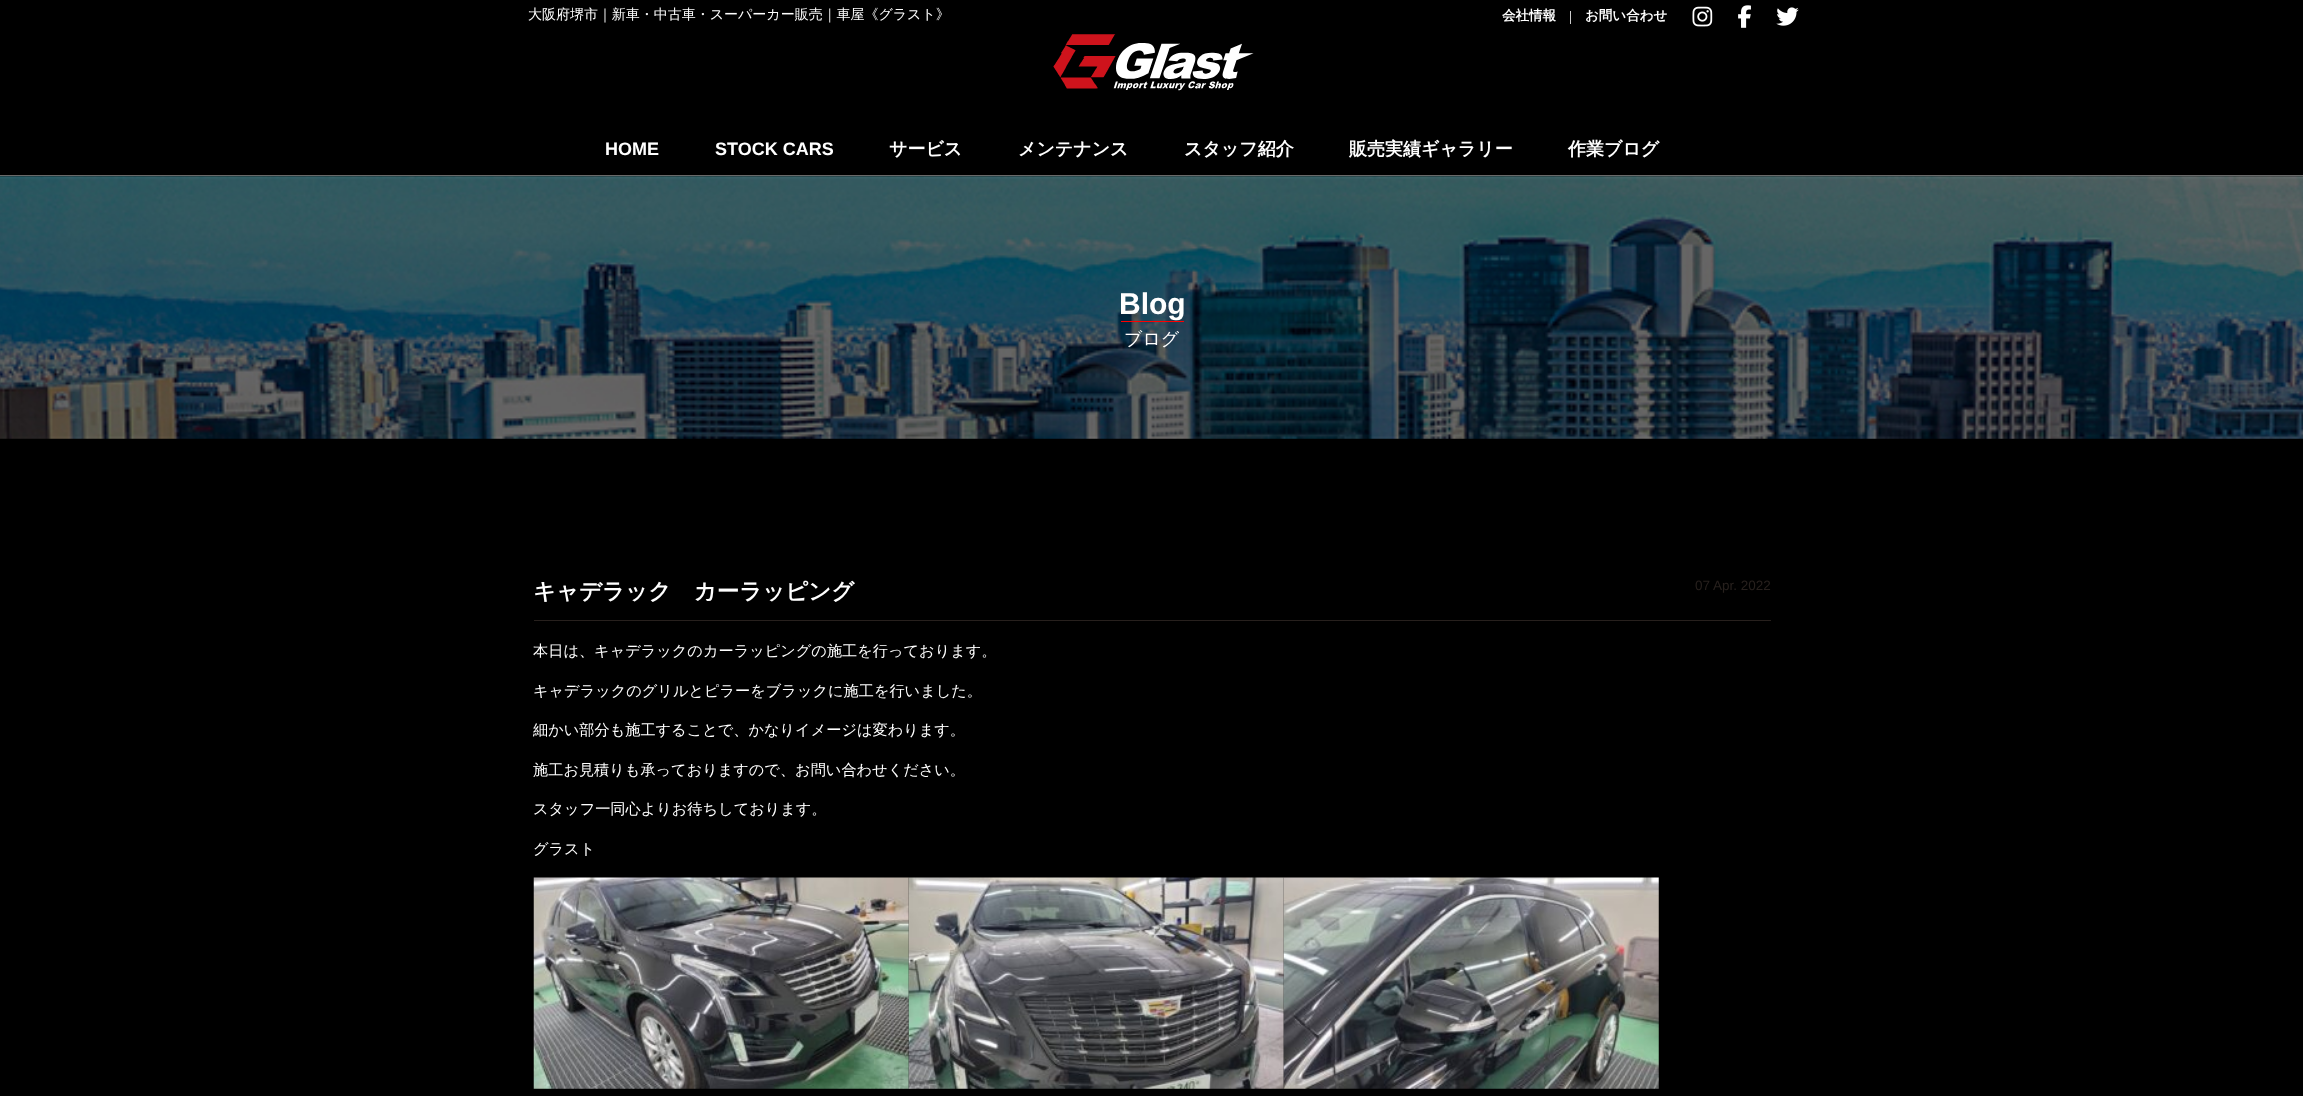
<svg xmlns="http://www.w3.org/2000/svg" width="2303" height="1096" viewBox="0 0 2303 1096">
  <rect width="100%" height="100%" fill="#000000"/>
  <text x="528" y="19" font-family="WenQuanYi Zen Hei" font-size="14" font-weight="500" fill="#ffffff">大阪府堺市｜新車・中古車・スーパーカー販売｜車屋《グラスト》</text>
  <text x="1502" y="20" font-family="WenQuanYi Zen Hei" font-size="13.5" font-weight="bold" fill="#ffffff">会社情報</text>
  <rect x="1570" y="11" width="1" height="13" fill="#cccccc"/>
  <text x="1585" y="20" font-family="WenQuanYi Zen Hei" font-size="13.5" font-weight="bold" fill="#ffffff">お問い合わせ</text>
  <image x="1692" y="6" width="21" height="21" href="img1.png"/>
  <image x="1738" y="5" width="13" height="23" href="img2.png"/>
  <image x="1776" y="7" width="23" height="19" href="img3.png"/>
  <text x="605" y="155" font-family="Liberation Sans" font-size="18" font-weight="bold" fill="#ffffff">HOME</text>
  <text x="715" y="155" font-family="Liberation Sans" font-size="18" font-weight="bold" fill="#ffffff">STOCK CARS</text>
  <text x="889" y="155" font-family="WenQuanYi Zen Hei" font-size="18" font-weight="bold" fill="#ffffff">サービス</text>
  <text x="1018" y="155" font-family="WenQuanYi Zen Hei" font-size="18" font-weight="bold" fill="#ffffff">メンテナンス</text>
  <text x="1184" y="155" font-family="WenQuanYi Zen Hei" font-size="18" font-weight="bold" fill="#ffffff">スタッフ紹介</text>
  <text x="1349" y="155" font-family="WenQuanYi Zen Hei" font-size="18" font-weight="bold" fill="#ffffff">販売実績ギャラリー</text>
  <text x="1568" y="155" font-family="WenQuanYi Zen Hei" font-size="18" font-weight="bold" fill="#ffffff">作業ブログ</text>
  <image x="1053" y="34" width="201" height="57" href="img4.png"/>
  <image x="0" y="176" width="2303" height="263" href="img5.png"/>
  <rect x="0" y="175" width="2303" height="1" fill="#696969"/>
  <text x="1119" y="314" font-family="Liberation Sans" font-size="30" font-weight="bold" fill="#ffffff">Blog</text>
  <rect x="1121" y="321" width="63" height="1" fill="#ff0000"/>
  <text x="1124" y="345" font-family="WenQuanYi Zen Hei" font-size="18" font-weight="500" fill="#ffffff">ブログ</text>
  <rect x="534" y="620" width="1237" height="1" fill="#27201d"/>
  <text x="533" y="599" font-family="WenQuanYi Zen Hei" font-size="22.5" font-weight="bold" fill="#ffffff">キャデラック　カーラッピング</text>
  <text x="1695" y="590" font-family="Liberation Sans" font-size="13.5" fill="#27201d">07 Apr. 2022</text>
  <text x="533" y="656" font-family="WenQuanYi Zen Hei" font-size="15.2" font-weight="500" fill="#ffffff">本日は、キャデラックのカーラッピングの施工を行っております。</text>
  <text x="533" y="696" font-family="WenQuanYi Zen Hei" font-size="15.2" font-weight="500" fill="#ffffff">キャデラックのグリルとピラーをブラックに施工を行いました。</text>
  <text x="533" y="735" font-family="WenQuanYi Zen Hei" font-size="15.2" font-weight="500" fill="#ffffff">細かい部分も施工することで、かなりイメージは変わります。</text>
  <text x="533" y="775" font-family="WenQuanYi Zen Hei" font-size="15.2" font-weight="500" fill="#ffffff">施工お見積りも承っておりますので、お問い合わせください。</text>
  <text x="533" y="814" font-family="WenQuanYi Zen Hei" font-size="15.2" font-weight="500" fill="#ffffff">スタッフ一同心よりお待ちしております。</text>
  <text x="533" y="854" font-family="WenQuanYi Zen Hei" font-size="15.2" font-weight="500" fill="#ffffff">グラスト</text>
  <image x="533" y="877" width="376" height="212" href="img6.png"/>
  <image x="908" y="877" width="376" height="212" href="img7.png"/>
  <image x="1283" y="877" width="376" height="212" href="img8.png"/>
</svg>
